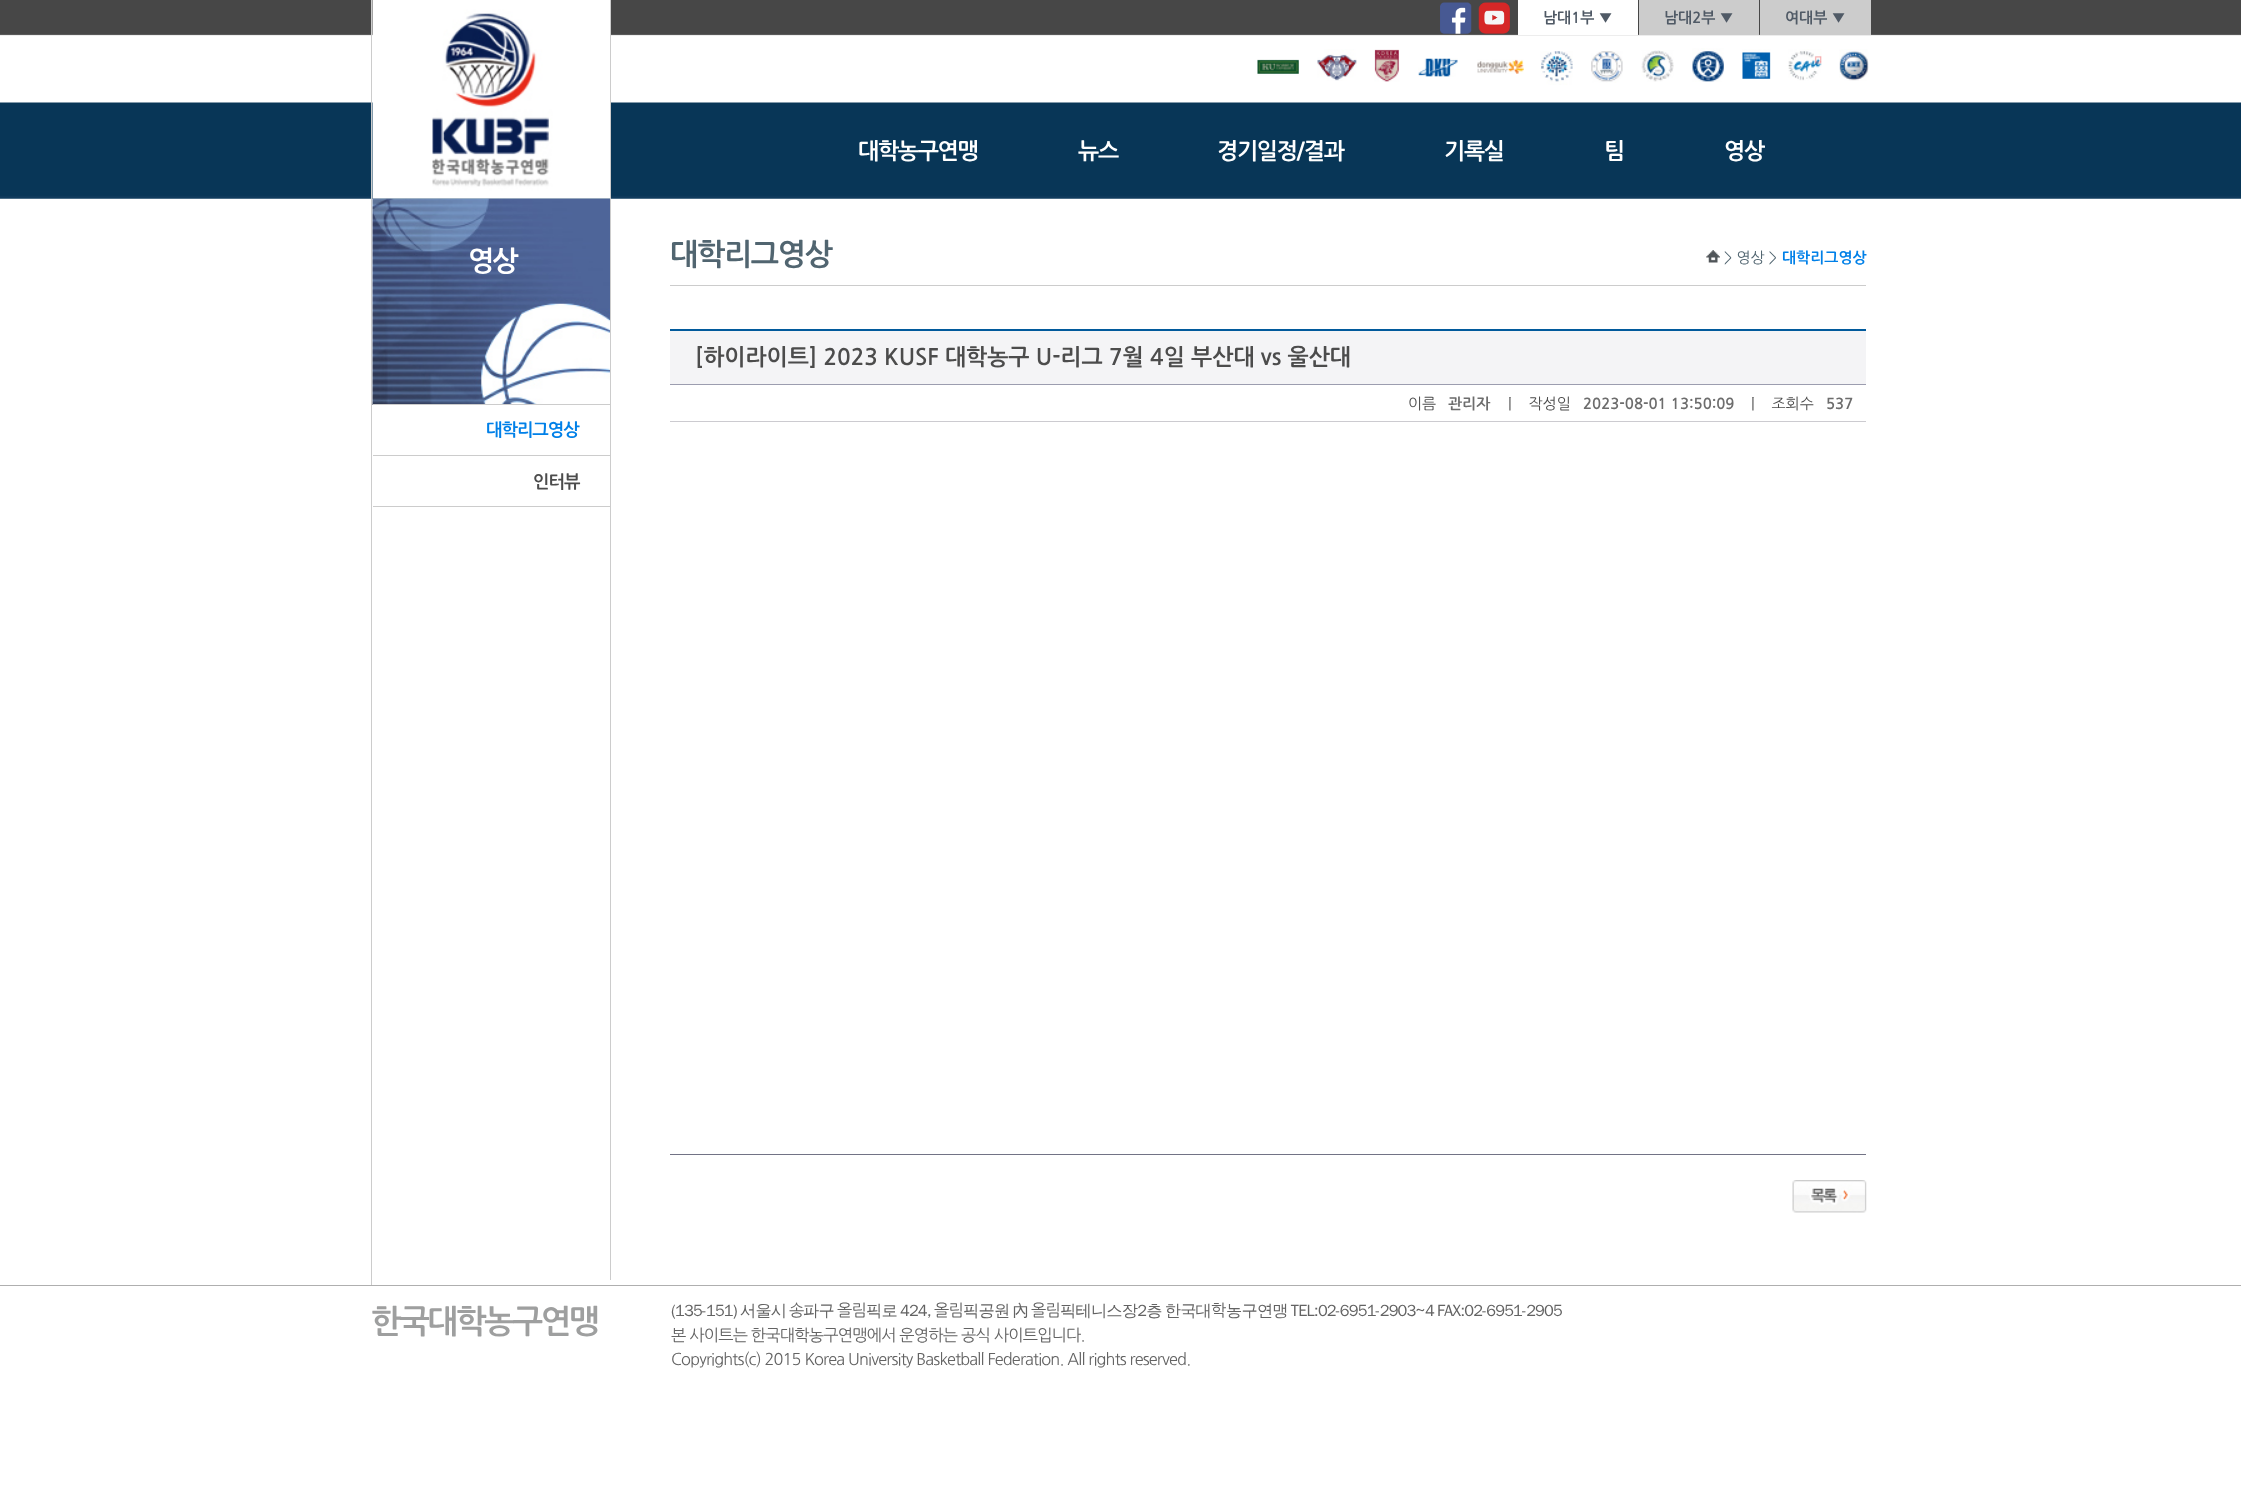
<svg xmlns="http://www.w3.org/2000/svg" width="2241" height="1505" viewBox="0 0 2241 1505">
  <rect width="100%" height="100%" fill="#ffffff"/>
  <image x="0" y="0" width="2241" height="199" href="img1.png"/>
  <rect x="371" y="0" width="1" height="199" fill="#cccccc"/>
  <image x="372" y="0" width="238" height="199" href="img2.png"/>
  <rect x="610" y="0" width="1" height="1280" fill="#cccccc"/>
  <image x="1440" y="2" width="32" height="32" href="img3.png"/>
  <image x="1478" y="2" width="32" height="32" href="img4.png"/>
  <rect x="1518" y="0" width="120" height="35" fill="#ffffff"/>
  <text x="1543" y="23" font-family="NanumGothic" font-size="15" font-weight="bold" fill="#505a66">남대1부 ▼</text>
  <rect x="1639" y="0" width="120" height="35" fill="#cccccc"/>
  <text x="1664" y="23" font-family="NanumGothic" font-size="15" font-weight="bold" fill="#505a66">남대2부 ▼</text>
  <rect x="1760" y="0" width="111" height="35" fill="#cccccc"/>
  <text x="1785" y="23" font-family="NanumGothic" font-size="15" font-weight="bold" fill="#505a66">여대부 ▼</text>
  <image x="1257" y="59" width="42" height="17" href="img5.png"/>
  <image x="1317" y="49" width="40" height="32" href="img6.png"/>
  <image x="1374" y="49" width="26" height="33" href="img7.png"/>
  <image x="1418" y="58" width="40" height="19" href="img8.png"/>
  <image x="1477" y="59" width="47" height="15" href="img9.png"/>
  <image x="1540" y="51" width="33" height="34" href="img10.png"/>
  <image x="1591" y="51" width="32" height="32" href="img11.png"/>
  <image x="1641" y="50" width="33" height="32" href="img12.png"/>
  <image x="1692" y="48" width="32" height="34" href="img13.png"/>
  <image x="1742" y="49" width="29" height="31" href="img14.png"/>
  <image x="1788" y="49" width="34" height="32" href="img15.png"/>
  <image x="1839" y="49" width="30" height="32" href="img16.png"/>
  <text x="858" y="159" font-family="NanumGothic" font-size="22.5" font-weight="bold" letter-spacing="-1.25" fill="#ffffff">대학농구연맹</text>
  <text x="1078" y="159" font-family="NanumGothic" font-size="22.5" font-weight="bold" letter-spacing="-1.25" fill="#ffffff">뉴스</text>
  <text x="1217" y="159" font-family="NanumGothic" font-size="22.5" font-weight="bold" letter-spacing="-1.25" fill="#ffffff">경기일정/결과</text>
  <text x="1444" y="159" font-family="NanumGothic" font-size="22.5" font-weight="bold" letter-spacing="-1.25" fill="#ffffff">기록실</text>
  <text x="1604" y="159" font-family="NanumGothic" font-size="22.5" font-weight="bold" letter-spacing="-1.25" fill="#ffffff">팀</text>
  <text x="1724" y="159" font-family="NanumGothic" font-size="22.5" font-weight="bold" letter-spacing="-1.25" fill="#ffffff">영상</text>
  <rect x="371" y="199" width="1" height="1086" fill="#cccccc"/>
  <image x="372" y="198" width="238" height="207" href="img17.png"/>
  <rect x="373" y="404" width="237" height="1" fill="#cccccc"/>
  <text x="468" y="271" font-family="NanumGothic" font-size="28" font-weight="bold" letter-spacing="-2" fill="#ffffff">영상</text>
  <rect x="373" y="455" width="237" height="1" fill="#cccccc"/>
  <text x="486" y="436" font-family="NanumGothic" font-size="17.5" font-weight="bold" letter-spacing="-1" fill="#0080e8">대학리그영상</text>
  <rect x="373" y="506" width="237" height="1" fill="#cccccc"/>
  <text x="533" y="488" font-family="NanumGothic" font-size="17.5" font-weight="bold" letter-spacing="-1" fill="#4c4c4c">인터뷰</text>
  <rect x="670" y="285" width="1196" height="1" fill="#cccccc"/>
  <text x="670" y="265" font-family="NanumGothic" font-size="30" font-weight="bold" letter-spacing="-1.25" fill="#516570">대학리그영상</text>
  <image x="1706" y="250" width="14" height="13" href="img18.png"/>
  <text x="1724" y="263" font-family="NanumGothic" font-size="15" fill="#516570">&gt; 영상 &gt;</text>
  <text x="1782" y="263" font-family="NanumGothic" font-size="15" font-weight="bold" fill="#0080e8">대학리그영상</text>
  <rect x="670" y="329" width="1196" height="2" fill="#015a9c"/>
  <rect x="670" y="1154" width="1196" height="1" fill="#727385"/>
  <rect x="670" y="331" width="1196" height="53" fill="#f4f4f6"/>
  <rect x="670" y="384" width="1196" height="1" fill="#9c9daf"/>
  <text x="695" y="365" font-family="NanumGothic" font-size="22.5" font-weight="bold" fill="#4c4c4c">[하이라이트] 2023 KUSF 대학농구 U-리그 7월 4일 부산대 vs 울산대</text>
  <rect x="670" y="421" width="1196" height="1" fill="#cccbd0"/>
  <text x="1408" y="409" font-family="NanumGothic" font-size="15" fill="#4c4c4c">이름</text>
  <text x="1448" y="409" font-family="NanumGothic" font-size="15" font-weight="bold" fill="#6d6d6d">관리자</text>
  <text x="1508" y="409" font-family="NanumGothic" font-size="15" fill="#4c4c4c" xml:space="preserve">|    작성일</text>
  <text x="1583" y="409" font-family="NanumGothic" font-size="15" font-weight="bold" fill="#6d6d6d">2023-08-01 13:50:09</text>
  <text x="1751" y="409" font-family="NanumGothic" font-size="15" fill="#4c4c4c" xml:space="preserve">|    조회수</text>
  <text x="1826" y="409" font-family="NanumGothic" font-size="15" font-weight="bold" fill="#6d6d6d">537</text>
  <image x="1792" y="1180" width="75" height="33" href="img19.png"/>
  <rect x="0" y="1285" width="2241" height="1" fill="#afafaf"/>
  <text x="371" y="1333" font-family="NanumGothic" font-size="32.5" font-weight="bold" letter-spacing="-2.25" fill="#9e9f9f">한국대학농구연맹</text>
  <text x="671" y="1316" word-spacing="-1" font-family="WenQuanYi Zen Hei" font-size="16.25" font-weight="500" letter-spacing="-0.8" fill="#636363">(135-151) 서울시</text>
  <text x="789" y="1316" font-family="NanumGothic" font-size="16.25" letter-spacing="-0.8" fill="#636363">송</text>
  <text x="803" y="1316" font-family="WenQuanYi Zen Hei" font-size="16.25" font-weight="500" letter-spacing="-0.8" fill="#636363">파구</text>
  <text x="837" y="1316" font-family="NanumGothic" font-size="16.25" letter-spacing="-0.8" fill="#636363">올림</text>
  <text x="866" y="1316" word-spacing="-1" font-family="WenQuanYi Zen Hei" font-size="16.25" font-weight="500" letter-spacing="-0.8" fill="#636363">픽로 424,</text>
  <text x="934" y="1316" font-family="NanumGothic" font-size="16.25" letter-spacing="-0.8" fill="#636363">올림</text>
  <text x="963" y="1316" word-spacing="-1" font-family="WenQuanYi Zen Hei" font-size="16.25" font-weight="500" letter-spacing="-0.8" fill="#636363">픽공원 內</text>
  <text x="1031" y="1316" font-family="NanumGothic" font-size="16.25" letter-spacing="-0.8" fill="#636363">올림</text>
  <text x="1060" y="1316" word-spacing="-1" font-family="WenQuanYi Zen Hei" font-size="16.25" font-weight="500" letter-spacing="-0.8" fill="#636363">픽테니스장2층 한국대</text>
  <text x="1211" y="1316" font-family="NanumGothic" font-size="16.25" letter-spacing="-0.8" fill="#636363">학</text>
  <text x="1226" y="1316" word-spacing="-1" font-family="WenQuanYi Zen Hei" font-size="16.25" font-weight="500" letter-spacing="-0.8" fill="#636363">농구연맹 TEL:02-6951-2903</text>
  <text x="1415" y="1316" font-family="NanumGothic" font-size="16.25" letter-spacing="-0.8" fill="#636363">~</text>
  <text x="1425" y="1316" word-spacing="-1" font-family="WenQuanYi Zen Hei" font-size="16.25" font-weight="500" letter-spacing="-0.8" fill="#636363">4 FAX:02-6951-2905</text>
  <text x="671" y="1341" font-family="NanumGothic" font-size="16.25" letter-spacing="-0.8" fill="#636363">본 사이트는 한국대학농구연맹에서 운영하는 공식 사이트입니다.</text>
  <text x="671" y="1365" font-family="NanumGothic" font-size="16.25" letter-spacing="-0.8" fill="#636363">Copyrights(c) 2015 Korea University Basketball Federation. All rights reserved.</text>
</svg>
